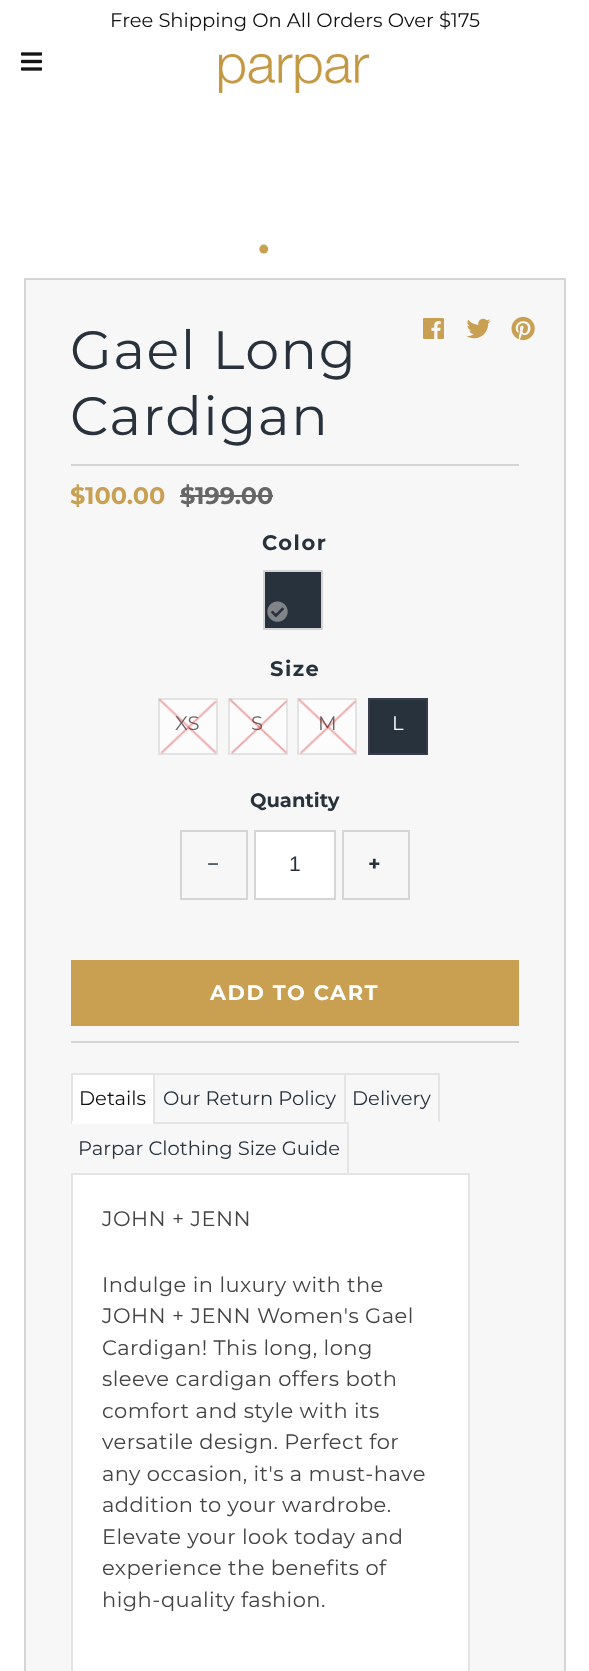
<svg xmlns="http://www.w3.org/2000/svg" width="589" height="1671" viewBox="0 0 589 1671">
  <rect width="100%" height="100%" fill="#ffffff"/>
  <text x="110" y="27" font-family="Montserrat" font-size="19.5" fill="#111111">Free Shipping On All Orders Over $175</text>
  <image x="21" y="52" width="21" height="19" href="img1.png"/>
  <image x="219" y="53" width="151" height="40" href="img2.png"/>
  <text x="258" y="260" font-family="Liberation Serif" font-size="33" font-weight="bold" letter-spacing="1.5" fill="#c9a052">•</text>
  <rect x="25" y="279" width="540" height="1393" fill="#f7f7f7" stroke="#d5d5d5" stroke-width="2"/>
  <text x="70" y="369" font-family="Montserrat" font-size="54" letter-spacing="1.5" fill="#28323c">Gael Long</text>
  <text x="70" y="435" font-family="Montserrat" font-size="54" letter-spacing="1.5" fill="#28323c">Cardigan</text>
  <image x="423" y="318" width="21" height="21" href="img3.png"/>
  <image x="466" y="318" width="25" height="21" href="img4.png"/>
  <image x="511" y="316" width="24" height="25" href="img5.png"/>
  <rect x="71" y="464" width="448" height="2" fill="#d5d5d5"/>
  <rect x="71" y="1041" width="448" height="2" fill="#d5d5d5"/>
  <text x="70" y="504" font-family="Montserrat" font-size="24" font-weight="bold" fill="#c9a052">$100.00</text>
  <text x="180" y="504" font-family="Montserrat" font-size="24" font-weight="bold" fill="#666666">$199.00</text>
  <rect x="180" y="495" width="93" height="2" fill="#666666"/>
  <text x="262" y="550" font-family="Montserrat" font-size="21" font-weight="bold" letter-spacing="1.5" fill="#28323c">Color</text>
  <rect x="264" y="571" width="58" height="58" fill="#28323c" stroke="#d5d5d5" stroke-width="2"/>
  <image x="267" y="601" width="21" height="21" href="img6.png"/>
  <text x="270" y="676" font-family="Montserrat" font-size="21" font-weight="bold" letter-spacing="1.5" fill="#28323c">Size</text>
  <rect x="159" y="699" width="58" height="55" fill="#fcfcfc" stroke="#e3e3e3" stroke-width="2"/>
  <text x="175" y="730" font-family="Montserrat" font-size="19.5" fill="#666666">XS</text>
  <image x="158" y="698" width="59" height="56" href="img7.png"/>
  <rect x="229" y="699" width="58" height="55" fill="#fcfcfc" stroke="#e3e3e3" stroke-width="2"/>
  <text x="251" y="730" font-family="Montserrat" font-size="19.5" fill="#666666">S</text>
  <image x="229" y="698" width="58" height="56" href="img8.png"/>
  <rect x="298" y="699" width="58" height="55" fill="#fcfcfc" stroke="#e3e3e3" stroke-width="2"/>
  <text x="318" y="730" font-family="Montserrat" font-size="19.5" fill="#666666">M</text>
  <image x="298" y="698" width="58" height="56" href="img9.png"/>
  <rect x="369" y="699" width="58" height="55" fill="#28323c" stroke="#393c4a" stroke-width="2"/>
  <text x="392" y="730" font-family="Montserrat" font-size="19.5" fill="#ffffff">L</text>
  <text x="250" y="807" font-family="Montserrat" font-size="19.5" font-weight="bold" fill="#28323c">Quantity</text>
  <rect x="181" y="831" width="66" height="68" fill="none" stroke="#d5d5d5" stroke-width="2"/>
  <text x="207" y="871" font-family="Liberation Serif" font-size="21" font-weight="bold" letter-spacing="1.5" fill="#28323c">−</text>
  <rect x="255" y="831" width="80" height="68" fill="#ffffff" stroke="#d5d5d5" stroke-width="2"/>
  <text x="289" y="871" font-family="Liberation Sans" font-size="21" fill="#28323c">1</text>
  <rect x="343" y="831" width="66" height="68" fill="none" stroke="#d5d5d5" stroke-width="2"/>
  <text x="368" y="871" font-family="Montserrat" font-size="21" font-weight="bold" letter-spacing="1.5" fill="#28323c">+</text>
  <rect x="71" y="960" width="448" height="66" fill="#c9a052"/>
  <text x="210" y="1000" font-family="Montserrat" font-size="21" font-weight="bold" letter-spacing="1.5" fill="#ffffff">ADD TO CART</text>
  <rect x="73" y="1075" width="80" height="46" fill="#ffffff"/>
  <rect x="71" y="1073" width="274" height="2" fill="#e4e4e4"/>
  <rect x="153" y="1073" width="2" height="49" fill="#e4e4e4"/>
  <rect x="71" y="1073" width="2" height="49" fill="#e4e4e4"/>
  <text x="79" y="1105" font-family="Montserrat" font-size="19.5" fill="#111111">Details</text>
  <rect x="71" y="1122" width="277" height="2" fill="#e4e4e4"/>
  <rect x="72" y="1121" width="81" height="3" fill="#ffffff"/>
  <rect x="344" y="1073" width="2" height="49" fill="#e4e4e4"/>
  <text x="163" y="1105" font-family="Montserrat" font-size="19.5" fill="#28323c">Our Return Policy</text>
  <rect x="345" y="1073" width="95" height="2" fill="#e4e4e4"/>
  <rect x="438" y="1073" width="2" height="49" fill="#e4e4e4"/>
  <text x="352" y="1105" font-family="Montserrat" font-size="19.5" fill="#28323c">Delivery</text>
  <rect x="347" y="1122" width="2" height="51" fill="#e4e4e4"/>
  <text x="78" y="1155" font-family="Montserrat" font-size="19.5" fill="#28323c">Parpar Clothing Size Guide</text>
  <rect x="72" y="1174" width="397" height="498" fill="#ffffff" stroke="#e4e4e4" stroke-width="2"/>
  <text x="102" y="1226" font-family="Montserrat" font-size="21" letter-spacing="0.45" fill="#444444">JOHN + JENN</text>
  <text x="102" y="1292" font-family="Montserrat" font-size="21" letter-spacing="0.45" fill="#444444">Indulge in luxury with the</text>
  <text x="102" y="1323" font-family="Montserrat" font-size="21" letter-spacing="0.45" fill="#444444">JOHN + JENN Women's Gael</text>
  <text x="102" y="1355" font-family="Montserrat" font-size="21" letter-spacing="0.45" fill="#444444">Cardigan! This long, long</text>
  <text x="102" y="1386" font-family="Montserrat" font-size="21" letter-spacing="0.45" fill="#444444">sleeve cardigan offers both</text>
  <text x="102" y="1418" font-family="Montserrat" font-size="21" letter-spacing="0.45" fill="#444444">comfort and style with its</text>
  <text x="102" y="1449" font-family="Montserrat" font-size="21" letter-spacing="0.45" fill="#444444">versatile design. Perfect for</text>
  <text x="102" y="1481" font-family="Montserrat" font-size="21" letter-spacing="0.45" fill="#444444">any occasion, it's a must-have</text>
  <text x="102" y="1512" font-family="Montserrat" font-size="21" letter-spacing="0.45" fill="#444444">addition to your wardrobe.</text>
  <text x="102" y="1544" font-family="Montserrat" font-size="21" letter-spacing="0.45" fill="#444444">Elevate your look today and</text>
  <text x="102" y="1575" font-family="Montserrat" font-size="21" letter-spacing="0.45" fill="#444444">experience the benefits of</text>
  <text x="102" y="1607" font-family="Montserrat" font-size="21" letter-spacing="0.45" fill="#444444">high-quality fashion.</text>
</svg>
